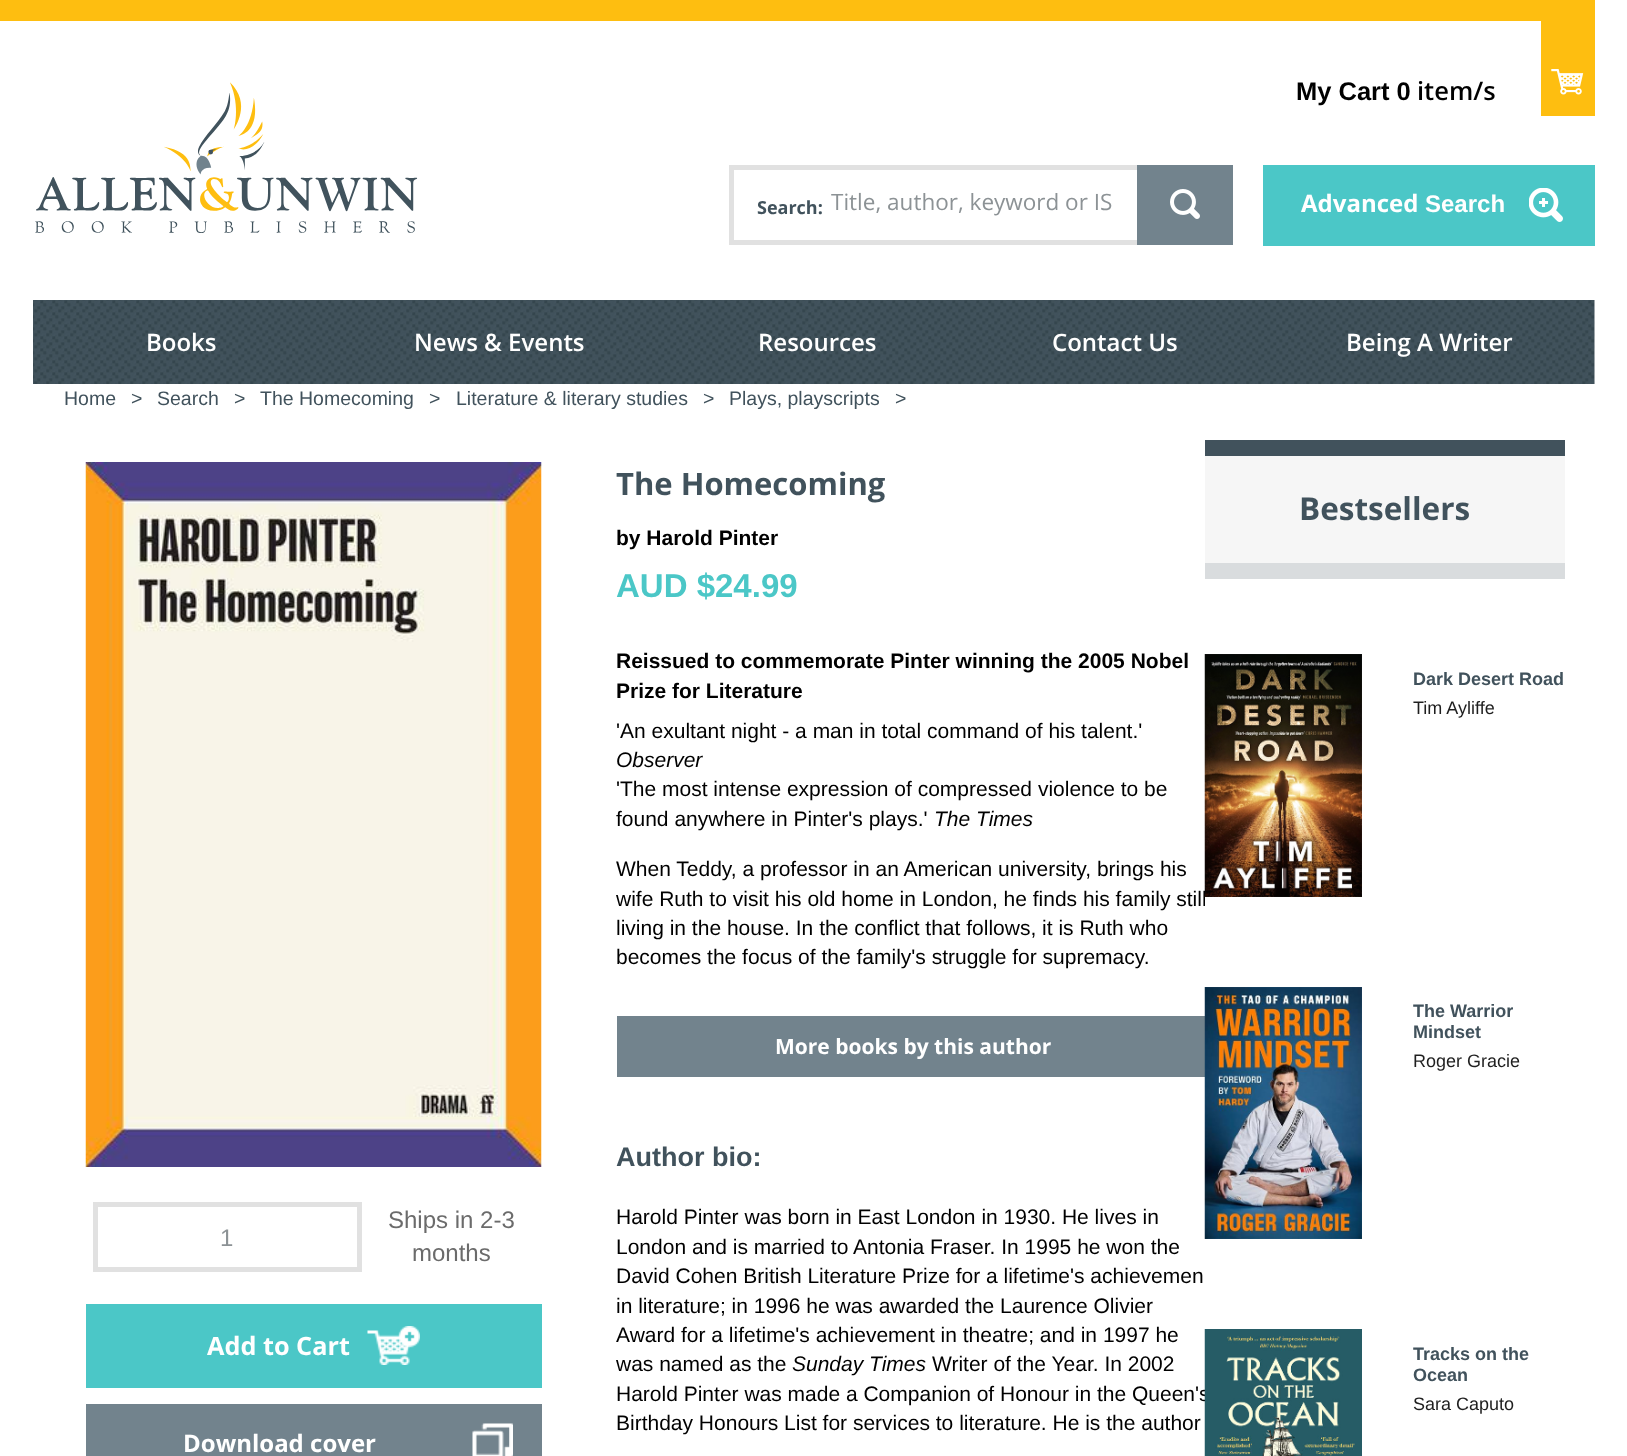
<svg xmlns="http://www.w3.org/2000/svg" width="1627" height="1456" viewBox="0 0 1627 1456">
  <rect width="100%" height="100%" fill="#ffffff"/>
  <rect x="0" y="0" width="1595" height="21" fill="#febe10"/>
  <image x="35" y="82" width="383" height="151" href="img1.png"/>
  <text x="1296" y="100" font-family="Liberation Sans" font-size="25.5" font-weight="bold" fill="#000000">My Cart 0</text>
  <text x="1417" y="100" font-family="Open Sans" font-size="25.5" font-weight="600" fill="#000000">item/s</text>
  <rect x="1541" y="21" width="54" height="95" fill="#febe10"/>
  <image x="1551" y="69" width="33" height="26" href="img2.png"/>
  <rect x="729" y="165" width="408" height="5" fill="#e1e1e1"/>
  <rect x="729" y="240" width="408" height="5" fill="#e1e1e1"/>
  <rect x="729" y="165" width="5" height="80" fill="#e1e1e1"/>
  <text x="757" y="214" font-family="Open Sans" font-size="18" font-weight="bold" fill="#41525c">Search:</text>
  <text x="831" y="210" font-family="Open Sans" font-size="22.5" fill="#8c9295">Title, author, keyword or IS</text>
  <rect x="1137" y="165" width="96" height="80" fill="#72838d"/>
  <image x="1170" y="189" width="30" height="30" href="img3.png"/>
  <rect x="1263" y="165" width="332" height="81" fill="#4bc7c7"/>
  <text x="1301" y="212" font-family="Open Sans" font-size="24" font-weight="bold" fill="#ffffff">Advanced</text>
  <text x="1425" y="212" font-family="Liberation Sans" font-size="24" font-weight="bold" fill="#ffffff">Search</text>
  <image x="1529" y="188" width="34" height="34" href="img4.png"/>
  <image x="33" y="300" width="1562" height="84" href="img5.png"/>
  <text x="146" y="351" font-family="Open Sans" font-size="24" font-weight="600" fill="#ffffff">Books</text>
  <text x="414" y="351" font-family="Open Sans" font-size="24" font-weight="600" fill="#ffffff">News &amp; Events</text>
  <text x="758" y="351" font-family="Open Sans" font-size="24" font-weight="600" fill="#ffffff">Resources</text>
  <text x="1052" y="351" font-family="Open Sans" font-size="24" font-weight="600" fill="#ffffff">Contact Us</text>
  <text x="1346" y="351" font-family="Open Sans" font-size="24" font-weight="600" fill="#ffffff">Being A Writer</text>
  <text x="64" y="405" font-family="Liberation Sans" font-size="19.5" fill="#41525c">Home</text>
  <text x="131" y="405" font-family="Liberation Sans" font-size="19.5" fill="#41525c">&gt;</text>
  <text x="157" y="405" font-family="Liberation Sans" font-size="19.5" fill="#41525c">Search</text>
  <text x="234" y="405" font-family="Liberation Sans" font-size="19.5" fill="#41525c">&gt;</text>
  <text x="260" y="405" font-family="Liberation Sans" font-size="19.5" fill="#41525c">The Homecoming</text>
  <text x="429" y="405" font-family="Liberation Sans" font-size="19.5" fill="#41525c">&gt;</text>
  <text x="456" y="405" font-family="Liberation Sans" font-size="19.5" fill="#41525c">Literature &amp; literary studies</text>
  <text x="703" y="405" font-family="Liberation Sans" font-size="19.5" fill="#41525c">&gt;</text>
  <text x="729" y="405" font-family="Liberation Sans" font-size="19.5" fill="#41525c">Plays, playscripts</text>
  <text x="895" y="405" font-family="Liberation Sans" font-size="19.5" fill="#41525c">&gt;</text>
  <image x="85" y="462" width="457" height="705" href="img6.png"/>
  <rect x="95.5" y="1204.5" width="264" height="65" fill="none" stroke="#e1e1e1" stroke-width="5"/>
  <text x="220" y="1246" font-family="Liberation Sans" font-size="24" fill="#8c9295">1</text>
  <text x="388" y="1228" font-family="Liberation Sans" font-size="24" fill="#6b6b6b">Ships in 2-3</text>
  <text x="412" y="1261" font-family="Liberation Sans" font-size="24" fill="#6b6b6b">months</text>
  <rect x="86" y="1304" width="456" height="84" fill="#4bc7c7"/>
  <image x="367" y="1326" width="53" height="39" href="img7.png"/>
  <text x="207" y="1355" font-family="Open Sans" font-size="25.25" font-weight="bold" fill="#ffffff">Add to Cart</text>
  <rect x="86" y="1404" width="456" height="52" fill="#72838d"/>
  <text x="183" y="1452" font-family="Open Sans" font-size="24" font-weight="bold" fill="#ffffff">Download cover</text>
  <image x="472" y="1423" width="41" height="33" href="img8.png"/>
  <text x="616" y="495" font-family="Open Sans" font-size="31" font-weight="bold" fill="#41525c">The Homecoming</text>
  <text x="616" y="545" font-family="Liberation Sans" font-size="21" font-weight="bold" fill="#000000">by Harold Pinter</text>
  <text x="616" y="597" font-family="Liberation Sans" font-size="33" font-weight="bold" fill="#4bc7c7">AUD $24.99</text>
  <text x="616" y="668" font-family="Liberation Sans" font-size="21" font-weight="bold" fill="#000000">Reissued to commemorate Pinter winning the 2005 Nobel</text>
  <text x="616" y="698" font-family="Liberation Sans" font-size="21" font-weight="bold" fill="#000000">Prize for Literature</text>
  <text x="616" y="738" font-family="Liberation Sans" font-size="21" fill="#000000">'An exultant night - a man in total command of his talent.'</text>
  <text x="616" y="767" font-family="Liberation Sans" font-size="21" font-style="italic" fill="#000000">Observer</text>
  <text x="616" y="796" font-family="Liberation Sans" font-size="21" fill="#000000">'The most intense expression of compressed violence to be</text>
  <text x="616" y="826" font-family="Liberation Sans" font-size="21" fill="#000000">found anywhere in Pinter's plays.'</text>
  <text x="934" y="826" font-family="Liberation Sans" font-size="21" font-style="italic" fill="#000000">The Times</text>
  <text x="616" y="876" font-family="Liberation Sans" font-size="21" fill="#000000">When Teddy, a professor in an American university, brings his</text>
  <text x="616" y="906" font-family="Liberation Sans" font-size="21" fill="#000000">wife Ruth to visit his old home in London, he finds his family still</text>
  <text x="616" y="935" font-family="Liberation Sans" font-size="21" fill="#000000">living in the house. In the conflict that follows, it is Ruth who</text>
  <text x="616" y="964" font-family="Liberation Sans" font-size="21" fill="#000000">becomes the focus of the family's struggle for supremacy.</text>
  <rect x="617" y="1016" width="588" height="61" fill="#72838d"/>
  <text x="775" y="1054" font-family="Open Sans" font-size="21" font-weight="bold" fill="#ffffff">More books by this author</text>
  <text x="616" y="1166" font-family="Liberation Sans" font-size="27" font-weight="bold" fill="#41525c">Author bio:</text>
  <text x="616" y="1224" font-family="Liberation Sans" font-size="21" fill="#000000">Harold Pinter was born in East London in 1930. He lives in</text>
  <text x="616" y="1254" font-family="Liberation Sans" font-size="21" fill="#000000">London and is married to Antonia Fraser. In 1995 he won the</text>
  <text x="616" y="1283" font-family="Liberation Sans" font-size="21" fill="#000000">David Cohen British Literature Prize for a lifetime's achievemen</text>
  <text x="616" y="1313" font-family="Liberation Sans" font-size="21" fill="#000000">in literature; in 1996 he was awarded the Laurence Olivier</text>
  <text x="616" y="1342" font-family="Liberation Sans" font-size="21" fill="#000000">Award for a lifetime's achievement in theatre; and in 1997 he</text>
  <text x="616" y="1371" font-family="Liberation Sans" font-size="21" fill="#000000">was named as the</text>
  <text x="792" y="1371" font-family="Liberation Sans" font-size="21" font-style="italic" fill="#000000">Sunday Times</text>
  <text x="932" y="1371" font-family="Liberation Sans" font-size="21" fill="#000000">Writer of the Year. In 2002</text>
  <text x="616" y="1401" font-family="Liberation Sans" font-size="21" fill="#000000">Harold Pinter was made a Companion of Honour in the Queen's</text>
  <text x="616" y="1430" font-family="Liberation Sans" font-size="21" fill="#000000">Birthday Honours List for services to literature. He is the author</text>
  <rect x="1205" y="440" width="360" height="16" fill="#41525c"/>
  <rect x="1205" y="456" width="360" height="107" fill="#f6f6f6"/>
  <rect x="1205" y="563" width="360" height="16" fill="#d9dcde"/>
  <text x="1299" y="520" font-family="Open Sans" font-size="31.5" font-weight="bold" fill="#41525c">Bestsellers</text>
  <rect x="1205" y="890" width="4" height="512" fill="#ffffff"/>
  <image x="1204" y="654" width="158" height="243" href="img9.png"/>
  <text x="1413" y="685" font-family="Liberation Sans" font-size="18" font-weight="bold" fill="#41525c">Dark Desert Road</text>
  <text x="1413" y="714" font-family="Liberation Sans" font-size="18" fill="#1f1f1f">Tim Ayliffe</text>
  <image x="1204" y="987" width="158" height="252" href="img10.png"/>
  <text x="1413" y="1017" font-family="Liberation Sans" font-size="18" font-weight="bold" fill="#41525c">The Warrior</text>
  <text x="1413" y="1038" font-family="Liberation Sans" font-size="18" font-weight="bold" fill="#41525c">Mindset</text>
  <text x="1413" y="1067" font-family="Liberation Sans" font-size="18" fill="#1f1f1f">Roger Gracie</text>
  <image x="1204" y="1329" width="158" height="127" href="img11.png"/>
  <text x="1413" y="1360" font-family="Liberation Sans" font-size="18" font-weight="bold" fill="#41525c">Tracks on the</text>
  <text x="1413" y="1381" font-family="Liberation Sans" font-size="18" font-weight="bold" fill="#41525c">Ocean</text>
  <text x="1413" y="1410" font-family="Liberation Sans" font-size="18" fill="#1f1f1f">Sara Caputo</text>
</svg>
